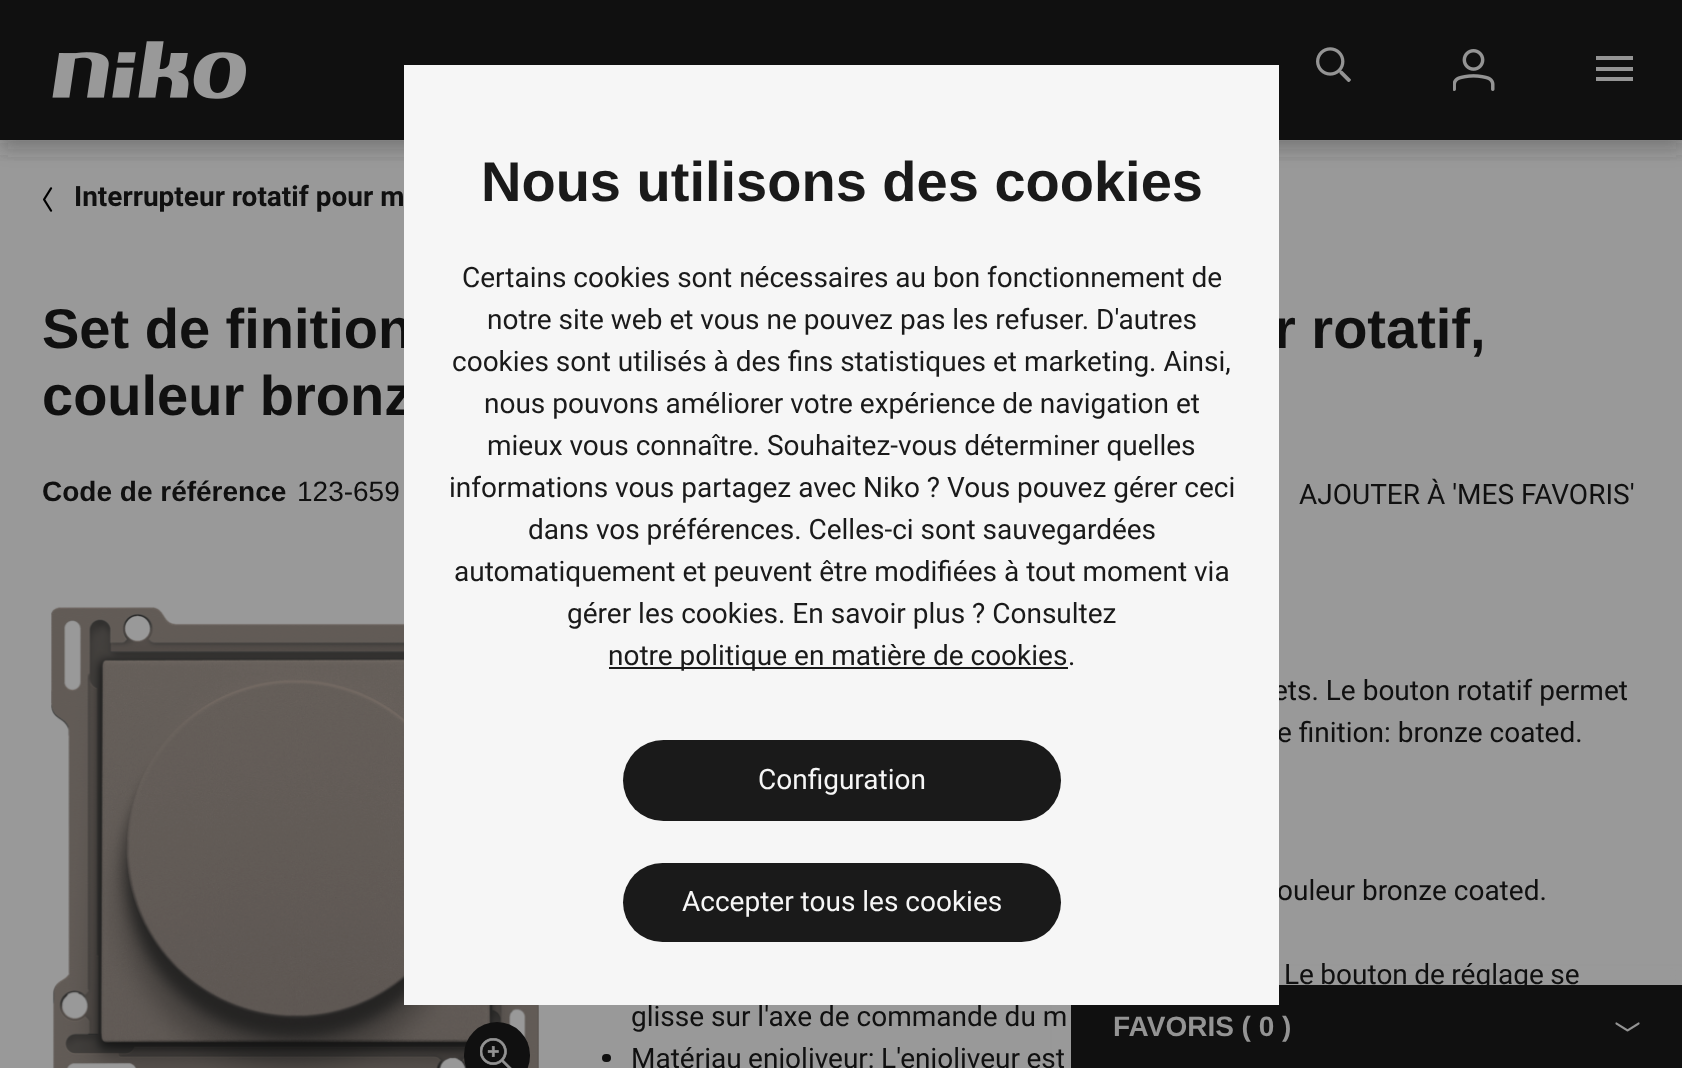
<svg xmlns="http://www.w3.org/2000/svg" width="1682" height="1068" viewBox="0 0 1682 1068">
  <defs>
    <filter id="blur1" x="-50%" y="-200%" width="200%" height="500%"><feGaussianBlur stdDeviation="9"/></filter>
    <clipPath id="clip1"><rect x="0" y="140" width="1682" height="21"/></clipPath>
  </defs>
  <rect width="100%" height="100%" fill="#999999"/>
  <rect x="0" y="9" width="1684" height="140" fill="#454141" fill-opacity="0.2" filter="url(#blur1)"/>
  <rect x="0" y="0" width="1682" height="140" fill="#101010"/>
  <g clip-path="url(#clip1)">
    <rect x="0" y="9" width="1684" height="140" fill="#454141" fill-opacity="0.2" filter="url(#blur1)"/>
  </g>
  <image x="52" y="41" width="194" height="58" href="img1.png"/>
  <rect x="1596" y="56" width="37" height="4" fill="#949494"/>
  <rect x="1596" y="67" width="37" height="4" fill="#949494"/>
  <rect x="1596" y="77" width="37" height="4" fill="#949494"/>
  <image x="1316" y="47" width="35" height="35" href="img2.png"/>
  <image x="1453" y="49" width="42" height="42" href="img3.png"/>
  <text x="42" y="348" font-family="Liberation Sans" font-size="56" font-weight="bold" fill="#101010">Set de finition</text>
  <text x="1274" y="348" font-family="Liberation Sans" font-size="56" font-weight="bold" fill="#101010">r rotatif,</text>
  <text x="42" y="415" font-family="Liberation Sans" font-size="56" font-weight="bold" fill="#101010">couleur bronz</text>
  <image x="51" y="606" width="488" height="462" href="img5.png"/>
  <text x="1273" y="700" font-family="Roboto" font-size="28" fill="#101010">ets. Le bouton rotatif permet</text>
  <text x="1277" y="742" font-family="Roboto" font-size="28" fill="#101010">e finition: bronze coated.</text>
  <text x="1277" y="900" font-family="Roboto" font-size="28" fill="#101010">ouleur bronze coated.</text>
  <rect x="1071" y="985" width="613" height="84" fill="#999999" fill-opacity="0.8" filter="url(#blur1)"/>
  <rect x="1071" y="985" width="611" height="83" fill="#101010"/>
  <rect x="404" y="65" width="875" height="940" fill="#f6f6f6"/>
  <text x="481" y="201" font-family="Liberation Sans" font-size="56" font-weight="bold" fill="#1a1a1a">Nous utilisons des cookies</text>
  <text x="462" y="287" font-family="Roboto" font-size="28" fill="#1a1a1a">Certains cookies sont nécessaires au bon fonctionnement de</text>
  <text x="487" y="329" font-family="Roboto" font-size="28" fill="#1a1a1a">notre site web et vous ne pouvez pas les refuser. D'autres</text>
  <text x="452" y="371" font-family="Roboto" font-size="28" fill="#1a1a1a">cookies sont utilisés à des fins statistiques et marketing. Ainsi,</text>
  <text x="484" y="413" font-family="Roboto" font-size="28" fill="#1a1a1a">nous pouvons améliorer votre expérience de navigation et</text>
  <text x="487" y="455" font-family="Roboto" font-size="28" fill="#1a1a1a">mieux vous connaître. Souhaitez-vous déterminer quelles</text>
  <text x="449" y="497" font-family="Roboto" font-size="28" fill="#1a1a1a">informations vous partagez avec Niko ? Vous pouvez gérer ceci</text>
  <text x="528" y="539" font-family="Roboto" font-size="28" fill="#1a1a1a">dans vos préférences. Celles-ci sont sauvegardées</text>
  <text x="454" y="581" font-family="Roboto" font-size="28" fill="#1a1a1a">automatiquement et peuvent être modifiées à tout moment via</text>
  <text x="567" y="623" font-family="Roboto" font-size="28" fill="#1a1a1a">gérer les cookies. En savoir plus ? Consultez</text>
  <rect x="609" y="667" width="459" height="2" fill="#1a1a1a"/>
  <text x="608" y="665" font-family="Roboto" font-size="28" fill="#1a1a1a">notre politique en matière de cookies</text>
  <text x="1068" y="665" font-family="Roboto" font-size="28" fill="#1a1a1a">.</text>
  <rect x="623" y="740" width="438" height="81" rx="40.5" fill="#1a1a1a"/>
  <text x="758" y="789" font-family="Roboto" font-size="28" fill="#f6f6f6">Configuration</text>
  <rect x="623" y="863" width="438" height="79" rx="39.5" fill="#1a1a1a"/>
  <text x="682" y="911" font-family="Roboto" font-size="28" fill="#f6f6f6">Accepter tous les cookies</text>
  <image x="43" y="187" width="10" height="25" href="img4.png"/>
  <text x="74" y="206" font-family="Roboto" font-size="28" font-weight="bold" fill="#101010">Interrupteur rotatif pour m</text>
  <text x="42" y="501" font-family="Liberation Sans" font-size="28" font-weight="bold" fill="#101010">Code de référence</text>
  <text x="297" y="501" font-family="Liberation Sans" font-size="28" fill="#101010">123-659</text>
  <text x="1299" y="504" font-family="Roboto" font-size="28" fill="#101010">AJOUTER À 'MES FAVORIS'</text>
  <rect x="464" y="1022" width="66" height="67" rx="33" fill="#101010"/>
  <image x="480" y="1038" width="32" height="30" href="img6.png"/>
  <text x="1284" y="984" word-spacing="-0.5" font-family="Roboto" font-size="28" fill="#101010">Le bouton de réglage se</text>
  <text x="631" y="1026" font-family="Roboto" font-size="28" fill="#101010">glisse sur l'axe de commande du m</text>
  <rect x="602" y="1054" width="9" height="8" rx="4" fill="#101010"/>
  <text x="631" y="1068" word-spacing="-0.5" font-family="Roboto" font-size="28" fill="#101010">Matériau enjoliveur: L'enjoliveur est</text>
  <text x="1113" y="1036" font-family="Liberation Sans" font-size="28" font-weight="bold" fill="#949494">FAVORIS ( 0 )</text>
  <image x="1615" y="1022" width="25" height="10" href="img7.png"/>
</svg>
